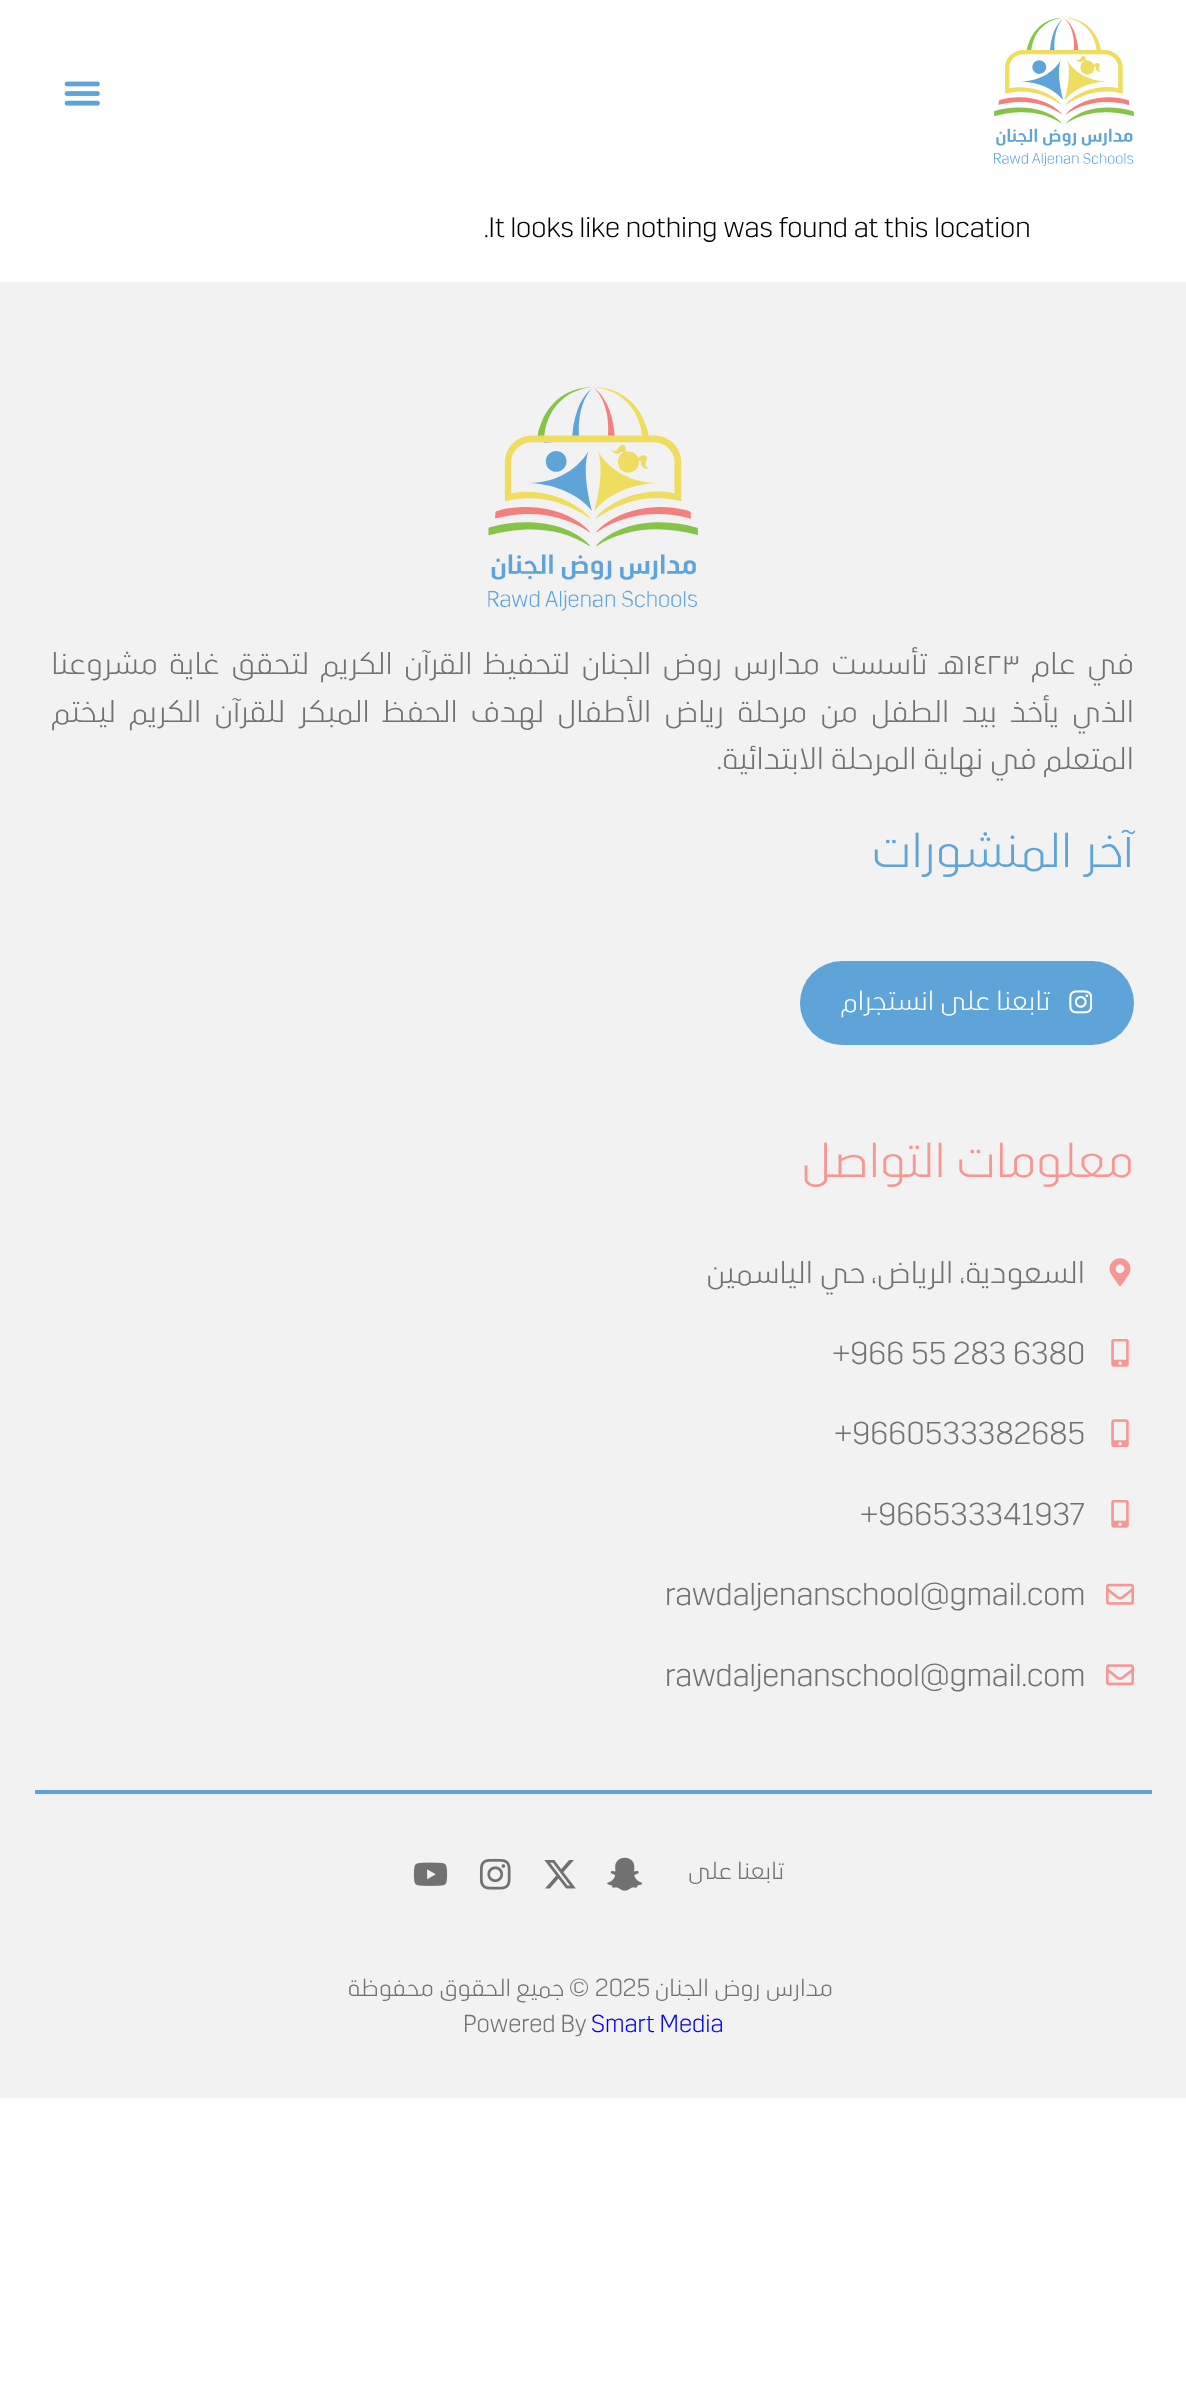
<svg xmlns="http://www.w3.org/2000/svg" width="1186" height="2402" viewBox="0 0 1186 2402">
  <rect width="100%" height="100%" fill="#ffffff"/>
  <image x="994" y="18" width="140" height="148" href="img1.png"/>
  <image x="64" y="81" width="36" height="25" href="img2.png"/>
  <text x="484" y="237" font-family="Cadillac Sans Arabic" font-size="28" font-weight="300" fill="#000000">.It looks like nothing was found at this location</text>
  <rect x="0" y="282" width="1186" height="1816" fill="#f2f2f2"/>
  <image x="488" y="387" width="210" height="224" href="img3.png"/>
  <text x="1134" y="674" word-spacing="4.5" font-family="Cadillac Sans Arabic" font-size="31.5" font-weight="300" direction="rtl" fill="#717171">في عام</text>
  <text x="965" y="674" font-family="Cadillac Sans Arabic" font-size="31.5" font-weight="300" fill="#717171">١٤٢٣</text>
  <text x="965" y="674" word-spacing="4.5" font-family="Cadillac Sans Arabic" font-size="31.5" font-weight="300" direction="rtl" fill="#717171">هـ تأسست مدارس روض الجنان لتحفيظ القرآن الكريم لتحقق غاية مشروعنا</text>
  <text x="1134" y="722" word-spacing="6.25" font-family="Cadillac Sans Arabic" font-size="31.5" font-weight="300" direction="rtl" fill="#717171">الذي يأخذ بيد الطفل من مرحلة رياض الأطفال لهدف الحفظ المبكر للقرآن الكريم ليختم</text>
  <text x="1134" y="769" font-family="Cadillac Sans Arabic" font-size="31.5" font-weight="300" direction="rtl" fill="#717171">المتعلم في نهاية المرحلة الابتدائية.</text>
  <text x="1134" y="867" font-family="Cadillac Sans Arabic" font-size="49" font-weight="300" direction="rtl" fill="#5ea4d8">آخر المنشورات</text>
  <rect x="800" y="961" width="334" height="84" rx="42" fill="#5ea4d8"/>
  <image x="1069" y="990" width="23" height="24" href="img4.png"/>
  <text x="1050" y="1010" font-family="Cadillac Sans Arabic" font-size="28" font-weight="300" direction="rtl" fill="#ffffff">تابعنا على انستجرام</text>
  <text x="1134" y="1177" font-family="Cadillac Sans Arabic" font-size="49" font-weight="300" direction="rtl" fill="#f59795">معلومات التواصل</text>
  <image x="1109" y="1258" width="22" height="28" href="img5.png"/>
  <text x="1085" y="1283" font-family="Cadillac Sans Arabic" font-size="31.5" font-weight="300" direction="rtl" fill="#717171">السعودية، الرياض، حي الياسمين</text>
  <image x="1111" y="1339" width="18" height="28" href="img6.png"/>
  <text x="832" y="1364" font-family="Cadillac Sans Arabic" font-size="31.5" font-weight="300" fill="#717171">+966 55 283 6380</text>
  <image x="1111" y="1419" width="18" height="28" href="img7.png"/>
  <text x="834" y="1444" font-family="Cadillac Sans Arabic" font-size="31.5" font-weight="300" fill="#717171">+9660533382685</text>
  <image x="1111" y="1500" width="18" height="28" href="img6.png"/>
  <text x="860" y="1525" font-family="Cadillac Sans Arabic" font-size="31.5" font-weight="300" fill="#717171">+966533341937</text>
  <image x="1106" y="1583" width="28" height="22" href="img8.png"/>
  <text x="665" y="1605" font-family="Cadillac Sans Arabic" font-size="31.5" font-weight="300" fill="#717171">rawdaljenanschool@gmail.com</text>
  <image x="1106" y="1664" width="28" height="22" href="img9.png"/>
  <text x="665" y="1686" font-family="Cadillac Sans Arabic" font-size="31.5" font-weight="300" fill="#717171">rawdaljenanschool@gmail.com</text>
  <rect x="35" y="1790" width="1117" height="4" fill="#5ea4d8"/>
  <text x="784" y="1879" font-family="Cadillac Sans Arabic" font-size="24.5" font-weight="300" direction="rtl" fill="#717171">تابعنا على</text>
  <image x="607" y="1857" width="35" height="34" href="img10.png"/>
  <image x="544" y="1860" width="32" height="29" href="img11.png"/>
  <image x="479" y="1858" width="32" height="32" href="img12.png"/>
  <image x="413" y="1862" width="35" height="24" href="img13.png"/>
  <text x="833" y="1996" font-family="Cadillac Sans Arabic" font-size="24.5" font-weight="300" direction="rtl" fill="#717171">مدارس روض الجنان</text>
  <text x="595" y="1996" font-family="Cadillac Sans Arabic" font-size="24.5" font-weight="300" fill="#717171">2025</text>
  <text x="589" y="1996" font-family="Cadillac Sans Arabic" font-size="24.5" font-weight="300" direction="rtl" fill="#717171">© جميع الحقوق محفوظة</text>
  <text x="591" y="2032" font-family="Cadillac Sans Arabic" font-size="24.5" font-weight="300" fill="#0000ee">Smart Media</text>
  <text x="463" y="2032" font-family="Cadillac Sans Arabic" font-size="24.5" font-weight="300" fill="#717171">Powered By</text>
</svg>
